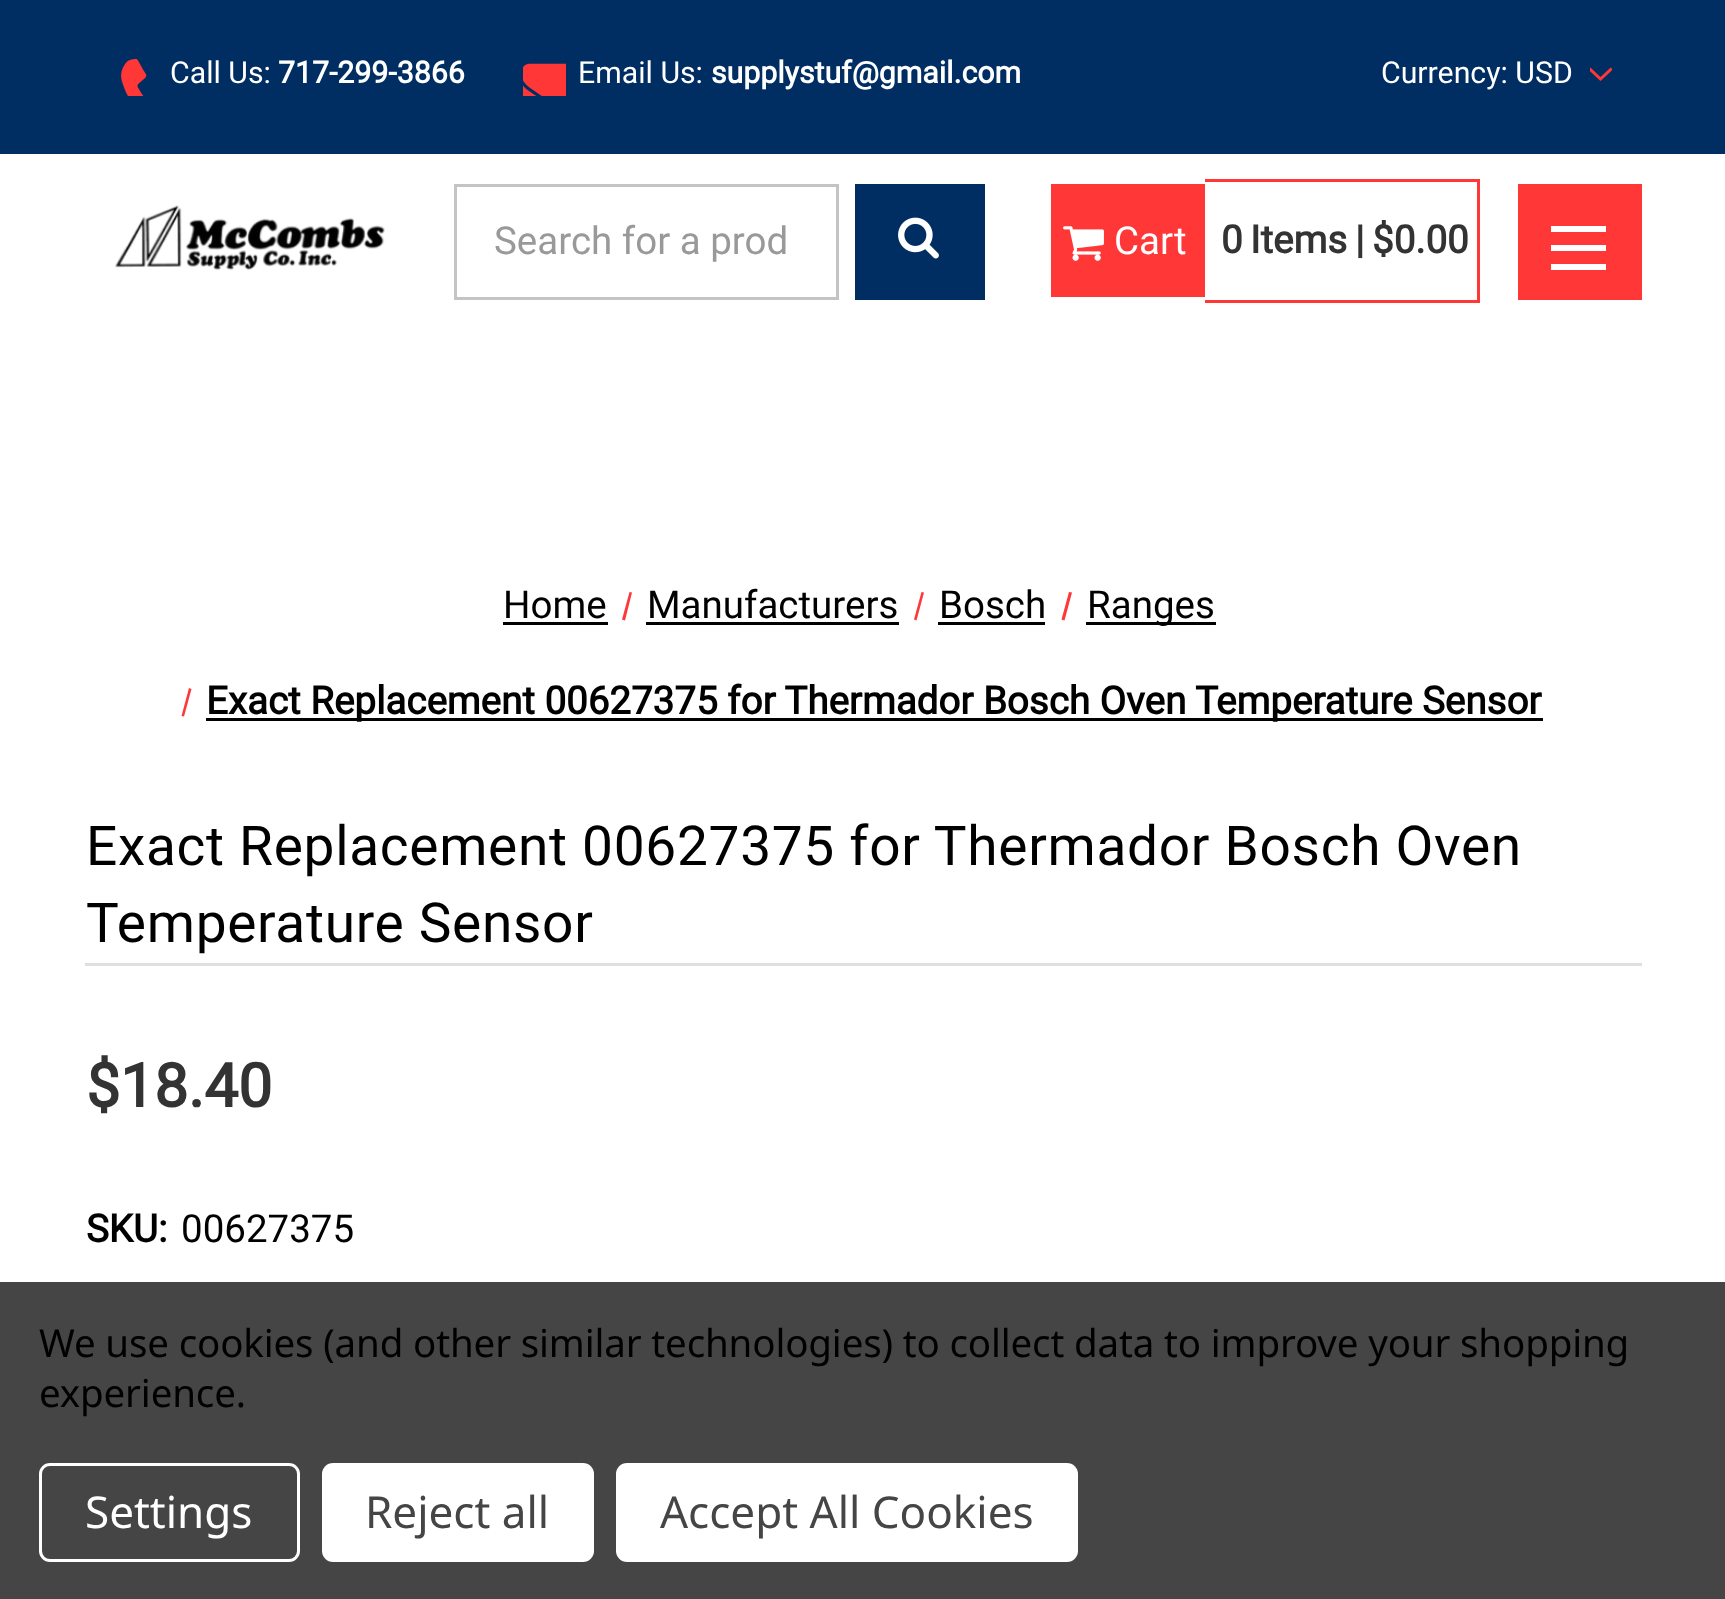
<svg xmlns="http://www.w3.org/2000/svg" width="1725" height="1599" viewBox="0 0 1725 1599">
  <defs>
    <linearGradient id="g1" gradientUnits="userSpaceOnUse" x1="920" y1="184" x2="920" y2="473"><stop offset="0" stop-color="#002e63"/><stop offset="0.5" stop-color="#002e63"/><stop offset="1" stop-color="#001f42"/></linearGradient>
  </defs>
  <rect width="100%" height="100%" fill="#ffffff"/>
  <rect x="0" y="0" width="1725" height="154" fill="#002e63"/>
  <image x="121" y="58" width="26" height="38" href="img1.png"/>
  <text x="170" y="83" font-family="Roboto" font-size="30.25" fill="#ffffff">Call Us:</text>
  <text x="278" y="83" font-family="Roboto" font-size="30.25" font-weight="bold" fill="#ffffff">717-299-3866</text>
  <image x="523" y="63" width="43" height="33" href="img2.png"/>
  <text x="578" y="83" font-family="Roboto" font-size="30.25" fill="#ffffff">Email Us:</text>
  <text x="711" y="83" font-family="Roboto" font-size="30.25" font-weight="bold" fill="#ffffff">supplystuf@gmail.com</text>
  <text x="1381" y="83" font-family="Roboto" font-size="30.25" fill="#ffffff">Currency: USD</text>
  <image x="1590" y="67" width="22" height="14" href="img3.png"/>
  <image x="115" y="205" width="270" height="66" href="img4.png"/>
  <rect x="455.5" y="185.5" width="382" height="113" fill="none" stroke="#c4c4c4" stroke-width="3"/>
  <text x="494" y="254" font-family="Roboto" font-size="38.5" fill="#999999">Search for a prod</text>
  <rect x="855" y="184" width="130" height="116" fill="url(#g1)"/>
  <image x="898" y="217" width="41" height="42" href="img5.png"/>
  <rect x="1052.5" y="185.5" width="151" height="110" fill="#ff3737" stroke="#ff3737" stroke-width="3"/>
  <image x="1063" y="226" width="41" height="35" href="img6.png"/>
  <text x="1114" y="254" font-family="Roboto" font-size="38.5" fill="#ffffff">Cart</text>
  <rect x="1205" y="179" width="275" height="3" fill="#ff3737"/>
  <rect x="1477" y="179" width="3" height="124" fill="#ff3737"/>
  <rect x="1205" y="300" width="275" height="3" fill="#ff3737"/>
  <text x="1221" y="253" font-family="Roboto" font-size="38.5" font-weight="bold" fill="#333333">0</text>
  <text x="1250" y="253" font-family="Roboto" font-size="38.5" font-weight="bold" fill="#333333">Items</text>
  <text x="1355" y="253" font-family="Roboto" font-size="38.5" font-weight="bold" fill="#333333">|</text>
  <text x="1372" y="253" font-family="Roboto" font-size="38.5" font-weight="bold" fill="#333333">$0.00</text>
  <rect x="1518" y="184" width="124" height="116" fill="#ff3737"/>
  <rect x="1551" y="245" width="55" height="6" fill="#ffffff"/>
  <rect x="1551" y="226" width="55" height="6" fill="#ffffff"/>
  <rect x="1551" y="264" width="55" height="6" fill="#ffffff"/>
  <text x="503" y="618" font-family="Roboto" font-size="38.5" fill="#000000">Home</text>
  <rect x="503" y="622" width="105" height="3" fill="#000000"/>
  <path d="M629.5 592L632 592.5L625 620.5L622 619.5Z" fill="#ff3737"/>
  <text x="647" y="618" font-family="Roboto" font-size="38.5" fill="#000000">Manufacturers</text>
  <rect x="646" y="622" width="253" height="3" fill="#000000"/>
  <path d="M921.5 592L924 592.5L916.5 620.5L914 619.5Z" fill="#ff3737"/>
  <text x="939" y="618" font-family="Roboto" font-size="38.5" fill="#000000">Bosch</text>
  <rect x="938" y="622" width="107" height="3" fill="#000000"/>
  <path d="M1069 592L1072 592.5L1064.5 620.5L1061.5 619.5Z" fill="#ff3737"/>
  <rect x="1086" y="622" width="130" height="3" fill="#000000"/>
  <text x="1087" y="618" font-family="Roboto" font-size="38.5" fill="#000000">Ranges</text>
  <path d="M189 688L191.5 689L184 716.5L181.5 716Z" fill="#ff3737"/>
  <rect x="206" y="718" width="1337" height="3" fill="#000000"/>
  <text x="206" y="714" font-family="Roboto" font-size="38.5" font-weight="bold" fill="#000000">Exact Replacement 00627375 for Thermador Bosch Oven Temperature Sensor</text>
  <rect x="85" y="963" width="1557" height="3" fill="#dfdfdf"/>
  <text x="86" y="865" font-family="Roboto" font-size="55" letter-spacing="0.7" fill="#000000">Exact Replacement 00627375 for Thermador Bosch Oven</text>
  <text x="86" y="942" font-family="Roboto" font-size="55" letter-spacing="0.7" fill="#000000">Temperature Sensor</text>
  <text x="86" y="1107" font-family="Roboto" font-size="60.5" font-weight="bold" fill="#333333">$18.40</text>
  <text x="86" y="1242" font-family="Roboto" font-size="38.5" font-weight="bold" fill="#000000">SKU:</text>
  <text x="181" y="1242" font-family="Roboto" font-size="38.5" fill="#000000">00627375</text>
  <rect x="0" y="1282" width="1725" height="317" fill="#454545"/>
  <text x="39" y="1357" font-family="Noto Sans" font-size="38.5" letter-spacing="-0.15" fill="#000000">We use cookies (and other similar technologies) to collect data to improve your shopping</text>
  <text x="39" y="1407" font-family="Noto Sans" font-size="38.5" letter-spacing="-0.15" fill="#000000">experience.</text>
  <rect x="40.5" y="1464.5" width="258" height="96" rx="9.5" fill="none" stroke="#ffffff" stroke-width="3"/>
  <text x="85" y="1528" font-family="Noto Sans" font-size="44" fill="#ffffff">Settings</text>
  <rect x="322" y="1463" width="272" height="99" rx="11" fill="#ffffff"/>
  <text x="365" y="1528" font-family="Noto Sans" font-size="44" fill="#454545">Reject all</text>
  <rect x="616" y="1463" width="462" height="99" rx="11" fill="#ffffff"/>
  <text x="660" y="1528" font-family="Noto Sans" font-size="44" fill="#454545">Accept All Cookies</text>
</svg>
